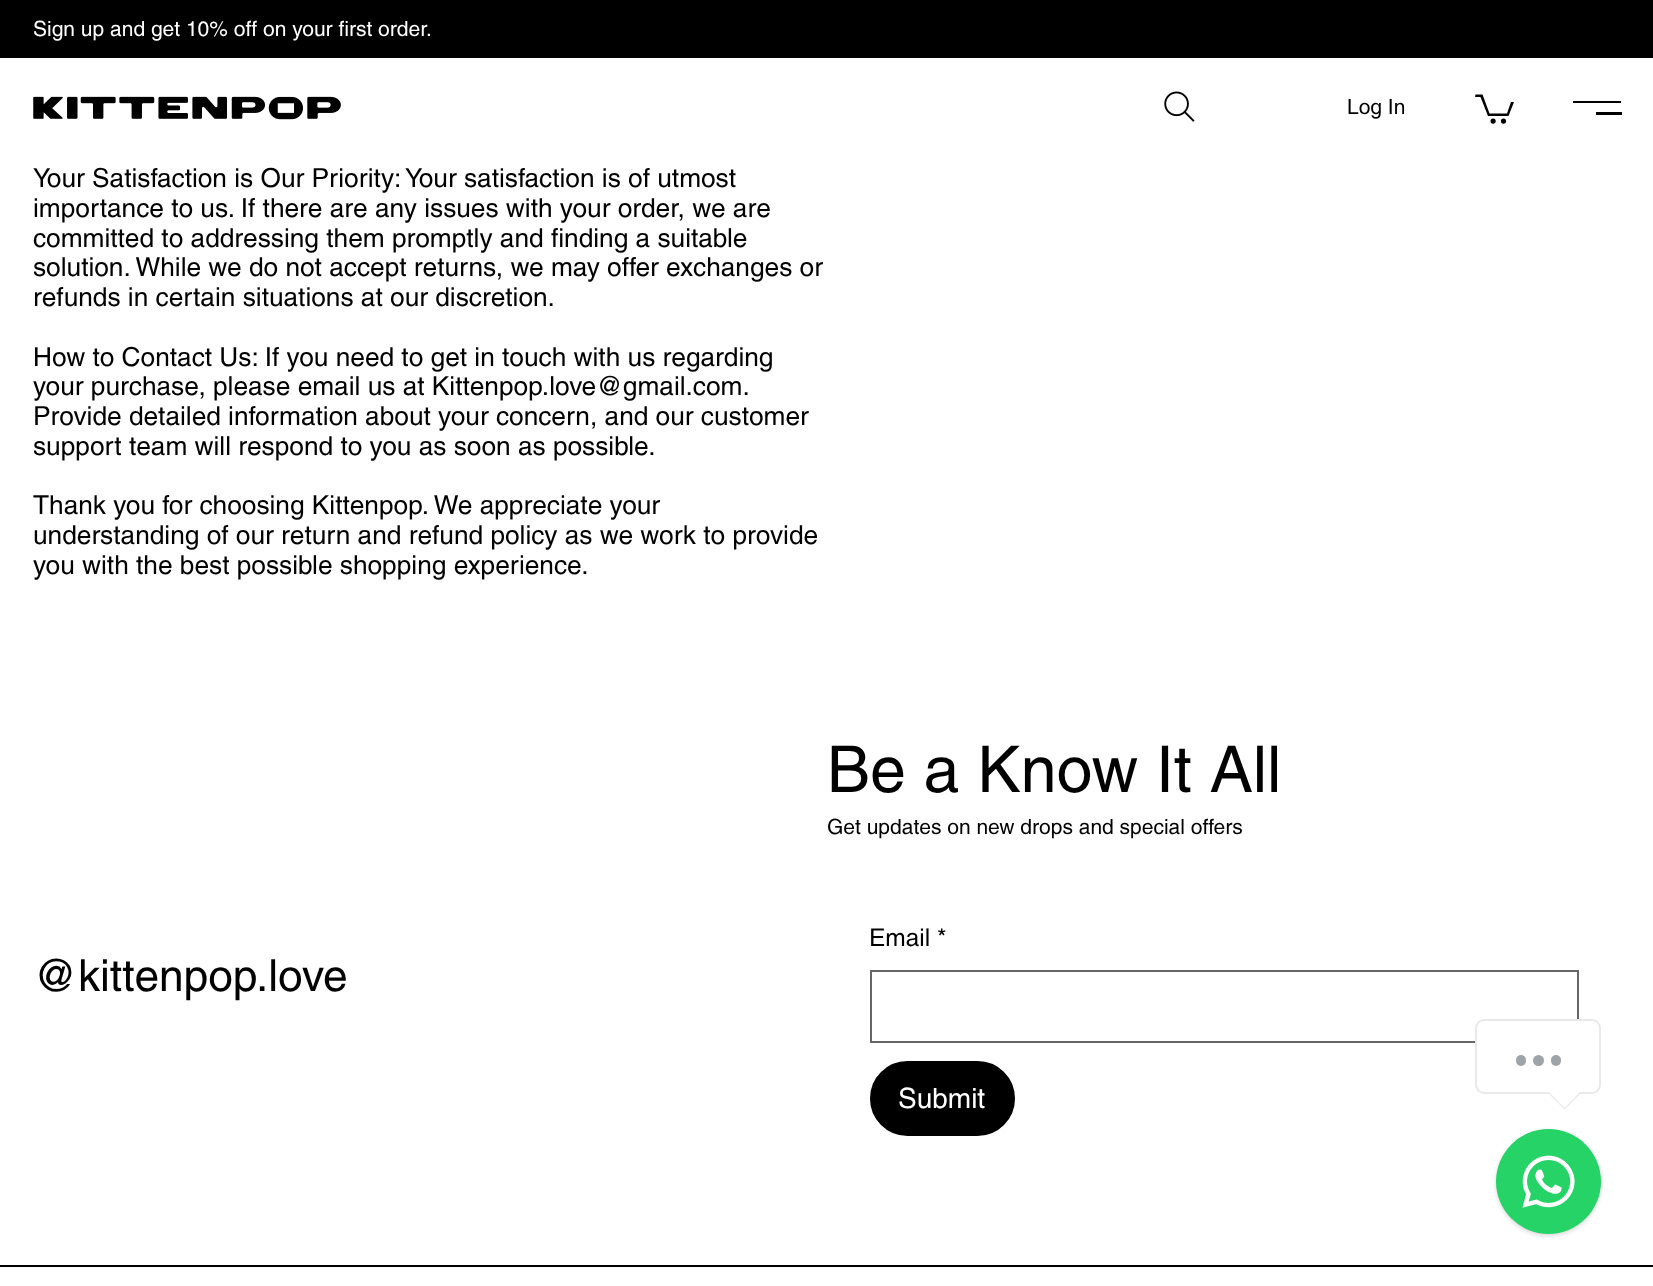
<svg xmlns="http://www.w3.org/2000/svg" width="1653" height="1286" viewBox="0 0 1653 1286">
  <defs>
    <filter id="blur1" x="-50%" y="-200%" width="200%" height="500%"><feGaussianBlur stdDeviation="2"/></filter>
  </defs>
  <rect width="100%" height="100%" fill="#ffffff"/>
  <rect x="0" y="0" width="1653" height="58" fill="#000000"/>
  <text x="33" y="36" font-family="helvetica" font-size="21" fill="#ffffff">Sign up and get 10% off on your first order.</text>
  <image x="33" y="96" width="308" height="24" href="img1.png"/>
  <image x="1164" y="91" width="31" height="31" href="img2.png"/>
  <text x="1347" y="114" font-family="helvetica" font-size="21" fill="#000000">Log In</text>
  <path d="M1514 102L1508.5 116H1488L1480.5 97H1475L1475.5 94.5H1482.5L1489.5 113.5H1507L1511 102" fill="#000000"/>
  <circle cx="1503.5" cy="121.1" r="2.6" fill="#000000"/>
  <circle cx="1493.1" cy="121.1" r="2.6" fill="#000000"/>
  <rect x="1573" y="101" width="48" height="2" fill="#000000"/>
  <rect x="1596" y="112" width="26" height="3" fill="#000000"/>
  <text x="33" y="187" font-family="helvetica" font-size="26.25" fill="#000000">Your Satisfaction is Our Priority: Your satisfaction is of utmost</text>
  <text x="33" y="217" font-family="helvetica" font-size="26.25" fill="#000000">importance to us. If there are any issues with your order, we are</text>
  <text x="33" y="247" font-family="helvetica" font-size="26.25" fill="#000000">committed to addressing them promptly and finding a suitable</text>
  <text x="33" y="276" font-family="helvetica" font-size="26.25" fill="#000000">solution. While we do not accept returns, we may offer exchanges or</text>
  <text x="33" y="306" font-family="helvetica" font-size="26.25" fill="#000000">refunds in certain situations at our discretion.</text>
  <text x="33" y="366" font-family="helvetica" font-size="26.25" fill="#000000">How to Contact Us: If you need to get in touch with us regarding</text>
  <text x="33" y="395" font-family="helvetica" font-size="26.25" fill="#000000">your purchase, please email us at Kittenpop.love@gmail.com.</text>
  <text x="33" y="425" font-family="helvetica" font-size="26.25" fill="#000000">Provide detailed information about your concern, and our customer</text>
  <text x="33" y="455" font-family="helvetica" font-size="26.25" fill="#000000">support team will respond to you as soon as possible.</text>
  <text x="33" y="514" font-family="helvetica" font-size="26.25" fill="#000000">Thank you for choosing Kittenpop. We appreciate your</text>
  <text x="33" y="544" font-family="helvetica" font-size="26.25" fill="#000000">understanding of our return and refund policy as we work to provide</text>
  <text x="33" y="574" font-family="helvetica" font-size="26.25" fill="#000000">you with the best possible shopping experience.</text>
  <text x="33" y="991" font-family="helvetica" font-size="44.25" fill="#000000">@kittenpop.love</text>
  <text x="827" y="792" font-family="helvetica" font-size="64.5" fill="#000000">Be a Know It All</text>
  <text x="827" y="834" font-family="helvetica" font-size="21" fill="#000000">Get updates on new drops and special offers</text>
  <text x="869" y="946" font-family="helvetica" font-size="24.5" fill="#000000">Email *</text>
  <rect x="871" y="971" width="707" height="71" fill="none" stroke="#666666" stroke-width="2"/>
  <rect x="871" y="1062" width="143" height="73" rx="36.5" fill="#000000" stroke="#000000" stroke-width="2"/>
  <text x="898" y="1108" font-family="helvetica" font-size="28" fill="#ffffff">Submit</text>
  <rect x="0" y="1265" width="1653" height="2" fill="#000000"/>
  <rect x="1476" y="1020" width="124" height="73" rx="8" fill="#ffffff" stroke="#e9e9e9" stroke-width="2"/>
  <rect x="1516" y="1055" width="10" height="11" rx="5" fill="#9fa4a8"/>
  <circle cx="1538.5" cy="1060.5" r="5.5" fill="#9fa4a8"/>
  <rect x="1551" y="1055" width="10" height="11" rx="5" fill="#9fa4a8"/>
  <path d="M1547 1092H1582L1564.5 1109.5Z" fill="#e9e9e9"/>
  <path d="M1549 1092H1580L1564.5 1108Z" fill="#ffffff"/>
  <rect x="1496" y="1131" width="105" height="105" rx="52.5" fill="#000000" fill-opacity="0.15" filter="url(#blur1)"/>
  <circle cx="1548.5" cy="1181.5" r="52.5" fill="#25d366"/>
  <image x="1522" y="1155" width="53" height="53" href="img3.png"/>
</svg>
